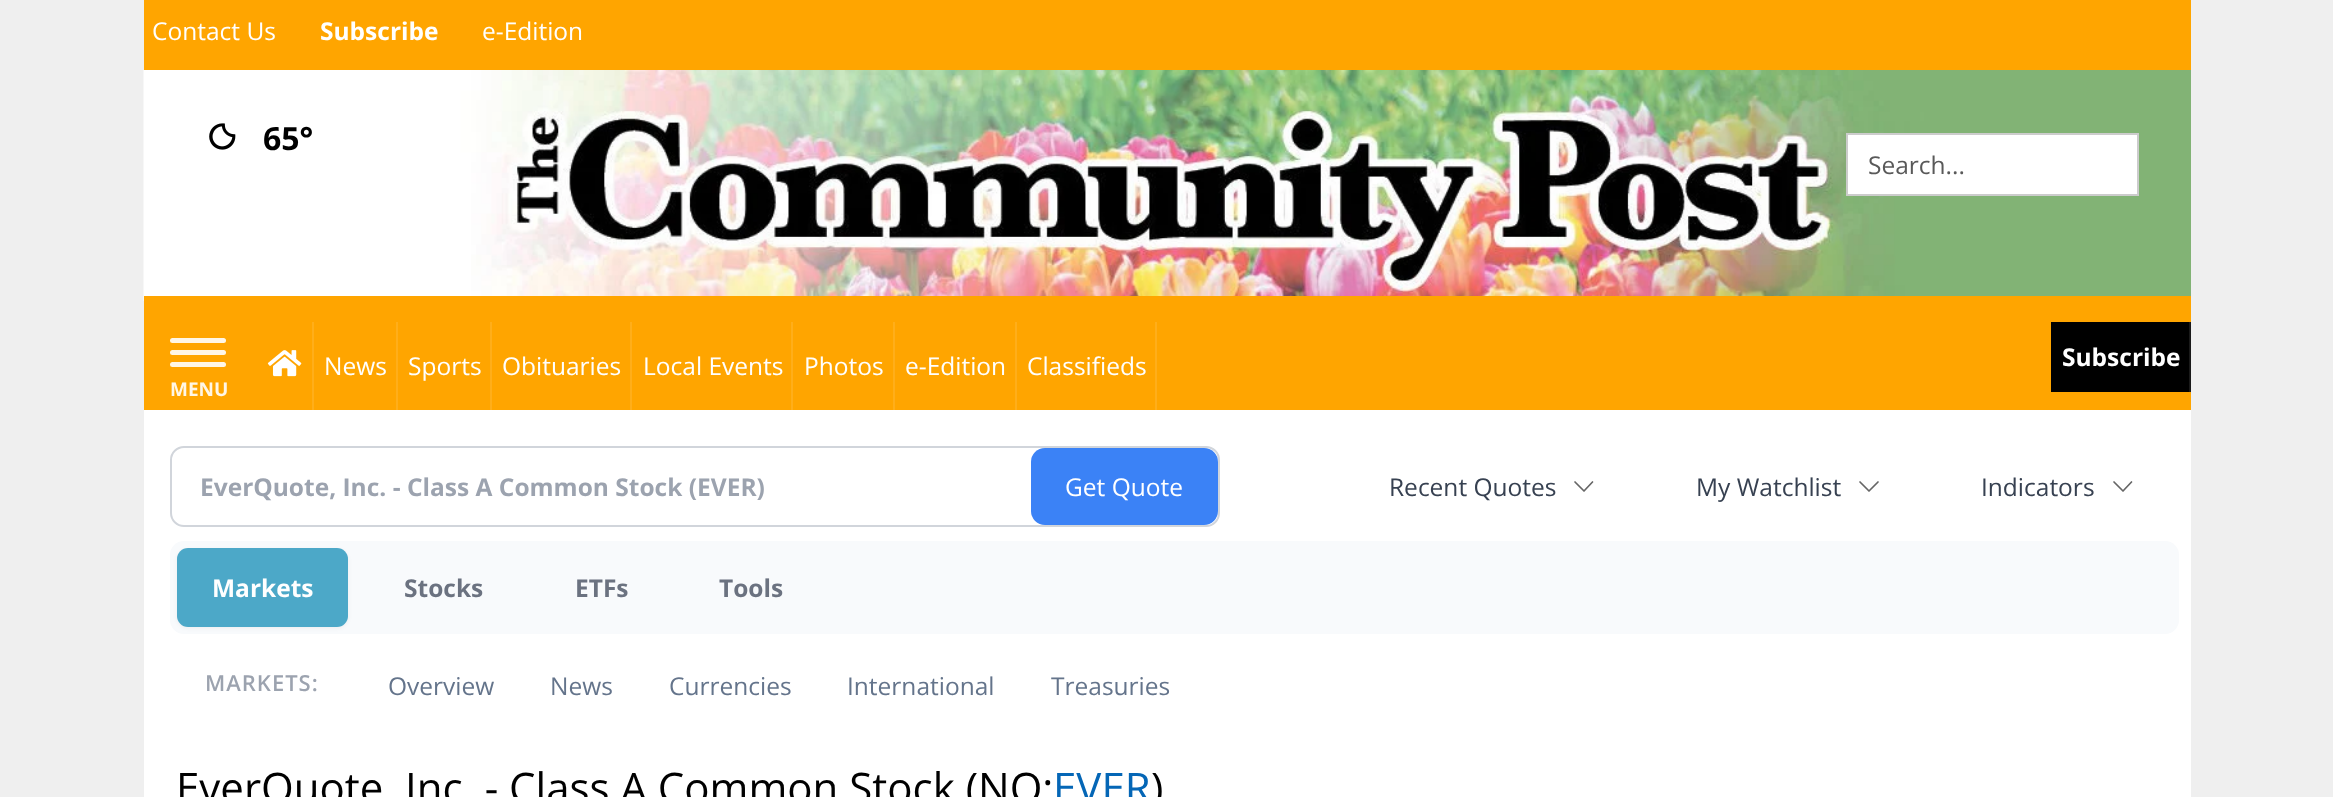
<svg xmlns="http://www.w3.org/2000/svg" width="2333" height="797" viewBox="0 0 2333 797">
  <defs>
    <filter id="blur1" x="-50%" y="-200%" width="200%" height="500%"><feGaussianBlur stdDeviation="2"/></filter>
  </defs>
  <rect width="100%" height="100%" fill="#efefef"/>
  <rect x="144" y="0" width="2047" height="70" fill="#ffa500"/>
  <text x="152" y="40" font-family="Open Sans" font-size="24.5" fill="#ffffff">Contact Us</text>
  <text x="320" y="40" font-family="Open Sans" font-size="24.5" font-weight="bold" fill="#ffffff">Subscribe</text>
  <text x="482" y="40" font-family="Open Sans" font-size="24.5" fill="#ffffff">e-Edition</text>
  <image x="143" y="70" width="2048" height="231" href="img1.png"/>
  <rect x="144" y="296" width="2047" height="114" fill="#ffa500"/>
  <image x="209" y="123" width="27" height="27" href="img2.png"/>
  <text x="263" y="150" font-family="Open Sans" font-size="32" font-weight="bold" fill="#000000">65°</text>
  <rect x="1847" y="134" width="291" height="61" fill="#ffffff" stroke="#cccccc" stroke-width="2"/>
  <text x="1868" y="174" font-family="Open Sans" font-size="24.5" fill="#595959">Search...</text>
  <rect x="312" y="322" width="2" height="88" fill="#ffae1a"/>
  <image x="267" y="350" width="35" height="27" href="img3.png"/>
  <rect x="396" y="322" width="2" height="88" fill="#ffae1a"/>
  <text x="324" y="375" font-family="Open Sans" font-size="24.5" fill="#ffffff">News</text>
  <rect x="490" y="322" width="2" height="88" fill="#ffae1a"/>
  <text x="408" y="375" font-family="Open Sans" font-size="24.5" fill="#ffffff">Sports</text>
  <rect x="630" y="322" width="2" height="88" fill="#ffae1a"/>
  <text x="502" y="375" font-family="Open Sans" font-size="24.5" fill="#ffffff">Obituaries</text>
  <rect x="791" y="322" width="2" height="88" fill="#ffae1a"/>
  <text x="643" y="375" font-family="Open Sans" font-size="24.5" fill="#ffffff">Local Events</text>
  <rect x="893" y="322" width="2" height="88" fill="#ffae1a"/>
  <text x="804" y="375" font-family="Open Sans" font-size="24.5" fill="#ffffff">Photos</text>
  <rect x="1015" y="322" width="2" height="88" fill="#ffae1a"/>
  <text x="905" y="375" font-family="Open Sans" font-size="24.5" fill="#ffffff">e-Edition</text>
  <rect x="1155" y="322" width="2" height="88" fill="#ffae1a"/>
  <text x="1027" y="375" font-family="Open Sans" font-size="24.5" fill="#ffffff">Classifieds</text>
  <rect x="2051" y="322" width="138" height="70" fill="#000000"/>
  <rect x="2189" y="322" width="2" height="70" fill="#1a1a1a"/>
  <text x="2062" y="366" font-family="Open Sans" font-size="24.5" font-weight="bold" fill="#ffffff">Subscribe</text>
  <rect x="170" y="338" width="56" height="5" rx="2.5" fill="#fff6e6"/>
  <rect x="170" y="350" width="56" height="5" rx="2.5" fill="#fff6e6"/>
  <rect x="170" y="362" width="56" height="5" rx="2.5" fill="#fff6e6"/>
  <text x="170" y="396" font-family="Open Sans" font-size="19" font-weight="bold" fill="#fff6e6">MENU</text>
  <rect x="144" y="410" width="2047" height="387" fill="#ffffff"/>
  <rect x="171" y="447" width="1048" height="79" rx="13" fill="none" stroke="#d1d5db" stroke-width="2"/>
  <text x="200" y="496" font-family="Open Sans" font-size="24.5" font-weight="bold" fill="#9ca3af">EverQuote, Inc. - Class A Common Stock (EVER)</text>
  <rect x="1031" y="448" width="187" height="77" rx="14" fill="#3b82f6"/>
  <text x="1065" y="496" font-family="Open Sans" font-size="24.5" fill="#ffffff">Get Quote</text>
  <text x="1389" y="496" font-family="Open Sans" font-size="24.5" fill="#374151">Recent Quotes</text>
  <path d="M1592.5 482L1584 491L1575 482" fill="none" stroke="#666666" stroke-width="1.7" stroke-linecap="round" stroke-linejoin="round"/>
  <text x="1696" y="496" font-family="Open Sans" font-size="24.5" fill="#374151">My Watchlist</text>
  <path d="M1878 482L1869 491L1860 482" fill="none" stroke="#666666" stroke-width="1.7" stroke-linecap="round" stroke-linejoin="round"/>
  <text x="1981" y="496" font-family="Open Sans" font-size="24.5" fill="#374151">Indicators</text>
  <path d="M2131.5 482L2123 491L2114 482" fill="none" stroke="#666666" stroke-width="1.7" stroke-linecap="round" stroke-linejoin="round"/>
  <rect x="170" y="541" width="2009" height="93" rx="14" fill="#f8fafc"/>
  <rect x="177" y="550" width="171" height="78" rx="11" fill="#000000" fill-opacity="0.05" filter="url(#blur1)"/>
  <rect x="177" y="548" width="171" height="79" rx="11" fill="#4ca8c8"/>
  <text x="212" y="597" font-family="Open Sans" font-size="24.5" font-weight="bold" fill="#ffffff">Markets</text>
  <text x="404" y="597" font-family="Open Sans" font-size="24.5" font-weight="bold" fill="#6b7280">Stocks</text>
  <text x="575" y="597" font-family="Open Sans" font-size="24.5" font-weight="bold" fill="#6b7280">ETFs</text>
  <text x="719" y="597" font-family="Open Sans" font-size="24.5" font-weight="bold" fill="#6b7280">Tools</text>
  <text x="205" y="691" font-family="Open Sans" font-size="22" font-weight="600" letter-spacing="1" fill="#9ca3af">MARKETS:</text>
  <text x="388" y="695" font-family="Open Sans" font-size="24.5" fill="#64748b">Overview</text>
  <text x="550" y="695" font-family="Open Sans" font-size="24.5" fill="#64748b">News</text>
  <text x="669" y="695" font-family="Open Sans" font-size="24.5" fill="#64748b">Currencies</text>
  <text x="847" y="695" font-family="Open Sans" font-size="24.5" fill="#64748b">International</text>
  <text x="1051" y="695" font-family="Open Sans" font-size="24.5" fill="#64748b">Treasuries</text>
  <text x="176" y="803" font-family="Open Sans" font-size="42" fill="#000000">EverQuote, Inc. - Class A Common Stock (NQ:</text>
  <text x="1053" y="803" font-family="Open Sans" font-size="42" fill="#0466b6">EVER</text>
  <text x="1151" y="803" font-family="Open Sans" font-size="42" fill="#000000">)</text>
</svg>
